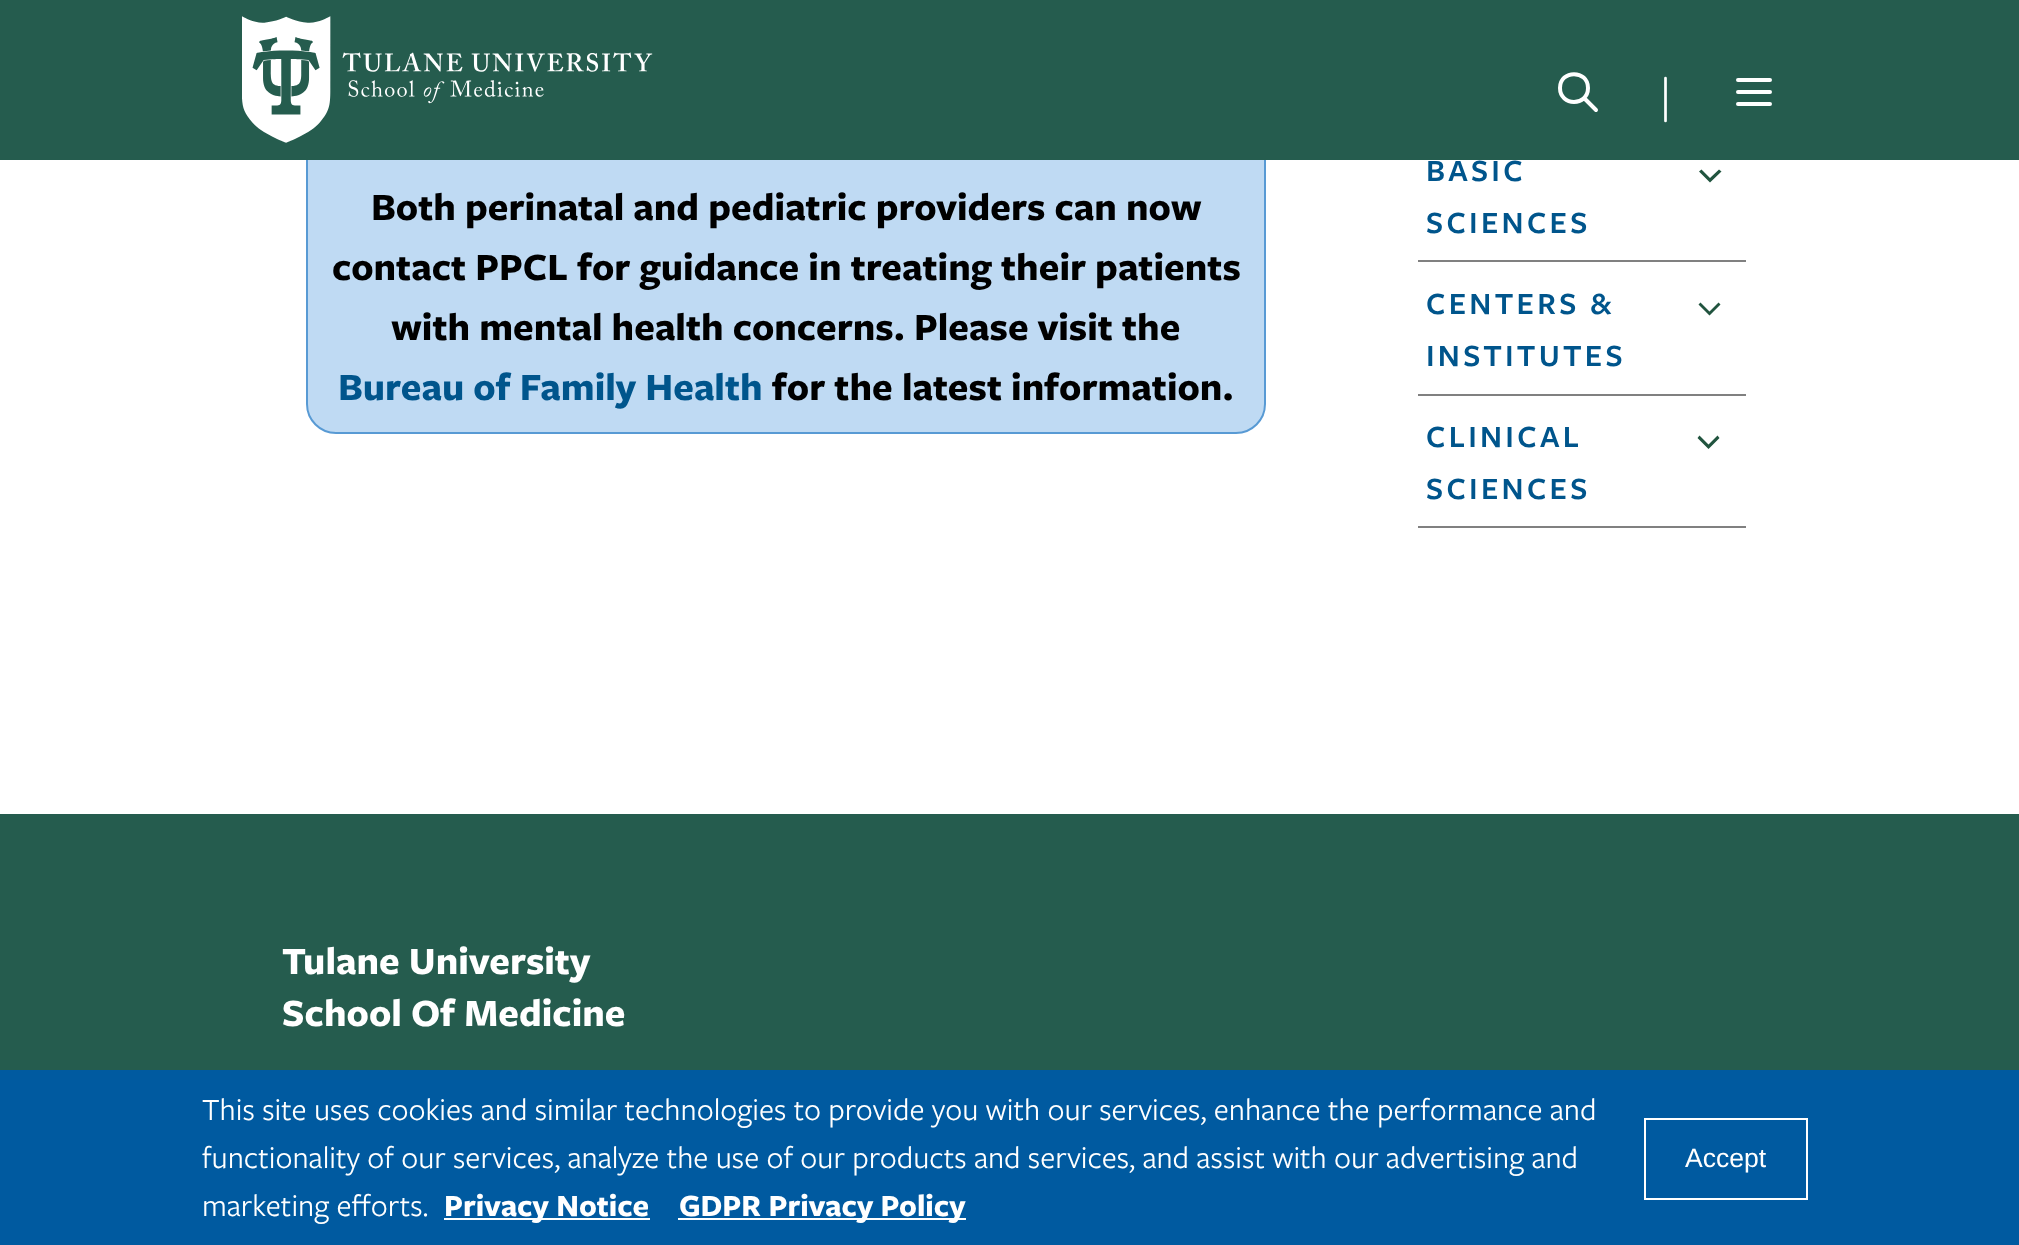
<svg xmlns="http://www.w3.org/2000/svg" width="2019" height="1245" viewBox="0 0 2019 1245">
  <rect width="100%" height="100%" fill="#ffffff"/>
  <rect x="307" y="-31" width="958" height="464" rx="29" fill="#bfdaf3" stroke="#589ad4" stroke-width="2"/>
  <rect x="0" y="0" width="2019" height="160" fill="#255c4e"/>
  <image x="242" y="16" width="411" height="127" href="img1.png"/>
  <path d="M1596 110L1584 98M1588 88C1588 106.5 1560 106.5 1560 88C1560 69.5 1588 69.5 1588 88Z" fill="none" stroke="#ffffff" stroke-width="4" stroke-linecap="round" stroke-linejoin="round"/>
  <path d="M1665.5 121V78" fill="none" stroke="#ffffff" stroke-width="2.7" stroke-linecap="round" stroke-linejoin="round"/>
  <path d="M1738 80H1770M1738 92H1770M1738 104H1770" fill="none" stroke="#ffffff" stroke-width="4" stroke-linecap="round" stroke-linejoin="round"/>
  <text x="371" y="220" font-family="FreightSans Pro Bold" font-size="40" font-weight="bold" fill="#000000">Both perinatal and pediatric providers can now</text>
  <text x="332" y="280" font-family="FreightSans Pro Bold" font-size="40" font-weight="bold" fill="#000000">contact PPCL for guidance in treating their patients</text>
  <text x="391" y="340" font-family="FreightSans Pro Bold" font-size="40" font-weight="bold" fill="#000000">with mental health concerns. Please visit the</text>
  <text x="338" y="400" font-family="FreightSans Pro Bold" font-size="40" font-weight="bold" fill="#00558c">Bureau of Family Health</text>
  <text x="772" y="400" font-family="FreightSans Pro Bold" font-size="40" font-weight="bold" fill="#000000">for the latest information.</text>
  <rect x="1418" y="260" width="328" height="2" fill="#808080"/>
  <text x="1426" y="181" font-family="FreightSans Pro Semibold" font-size="32" font-weight="600" letter-spacing="3.25" fill="#00558c">BASIC</text>
  <text x="1426" y="233" font-family="FreightSans Pro Semibold" font-size="32" font-weight="600" letter-spacing="3.25" fill="#00558c">SCIENCES</text>
  <path d="M1710 178L1719 169.5L1721.5 171.5L1710 182.5L1699 171.5L1701.5 169.5Z" fill="#21543f" fill-rule="evenodd"/>
  <rect x="1418" y="394" width="328" height="2" fill="#808080"/>
  <text x="1426" y="314" font-family="FreightSans Pro Semibold" font-size="32" font-weight="600" letter-spacing="3.25" fill="#00558c">CENTERS &amp;</text>
  <text x="1426" y="366" font-family="FreightSans Pro Semibold" font-size="32" font-weight="600" letter-spacing="3.25" fill="#00558c">INSTITUTES</text>
  <path d="M1709.5 311.5L1718.5 302.5L1720.5 304.5L1709.5 315.5L1698.5 304.5L1700.5 302.5Z" fill="#21543f" fill-rule="evenodd"/>
  <rect x="1418" y="526" width="328" height="2" fill="#808080"/>
  <text x="1426" y="447" font-family="FreightSans Pro Semibold" font-size="32" font-weight="600" letter-spacing="3.25" fill="#00558c">CLINICAL</text>
  <text x="1426" y="499" font-family="FreightSans Pro Semibold" font-size="32" font-weight="600" letter-spacing="3.25" fill="#00558c">SCIENCES</text>
  <path d="M1708.5 444.5L1717.5 435.5L1719.5 438L1708.5 449L1697.5 438L1699.5 435.5Z" fill="#21543f" fill-rule="evenodd"/>
  <rect x="0" y="814" width="2019" height="256" fill="#255c4e"/>
  <text x="282" y="974" font-family="FreightSans Pro Bold" font-size="40" font-weight="bold" fill="#ffffff">Tulane University</text>
  <text x="282" y="1026" font-family="FreightSans Pro Bold" font-size="40" font-weight="bold" fill="#ffffff">School Of Medicine</text>
  <rect x="0" y="1070" width="2019" height="175" fill="#005aa0"/>
  <text x="202" y="1120" font-family="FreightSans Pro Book" font-size="32" fill="#ffffff">This site uses cookies and similar technologies to provide you with our services, enhance the performance and</text>
  <text x="202" y="1168" font-family="FreightSans Pro Book" font-size="32" fill="#ffffff">functionality of our services, analyze the use of our products and services, and assist with our advertising and</text>
  <text x="202" y="1216" font-family="FreightSans Pro Book" font-size="32" fill="#ffffff">marketing efforts.</text>
  <rect x="444" y="1218" width="206" height="2" fill="#ffffff"/>
  <text x="444" y="1216" font-family="FreightSans Pro Bold" font-size="32" font-weight="bold" fill="#ffffff">Privacy Notice</text>
  <rect x="678" y="1218" width="288" height="2" fill="#ffffff"/>
  <text x="679" y="1216" font-family="FreightSans Pro Bold" font-size="32" font-weight="bold" fill="#ffffff">GDPR Privacy Policy</text>
  <rect x="1645" y="1119" width="162" height="80" fill="none" stroke="#ffffff" stroke-width="2"/>
  <text x="1685" y="1167" font-family="Liberation Sans" font-size="26.5" fill="#ffffff">Accept</text>
</svg>
